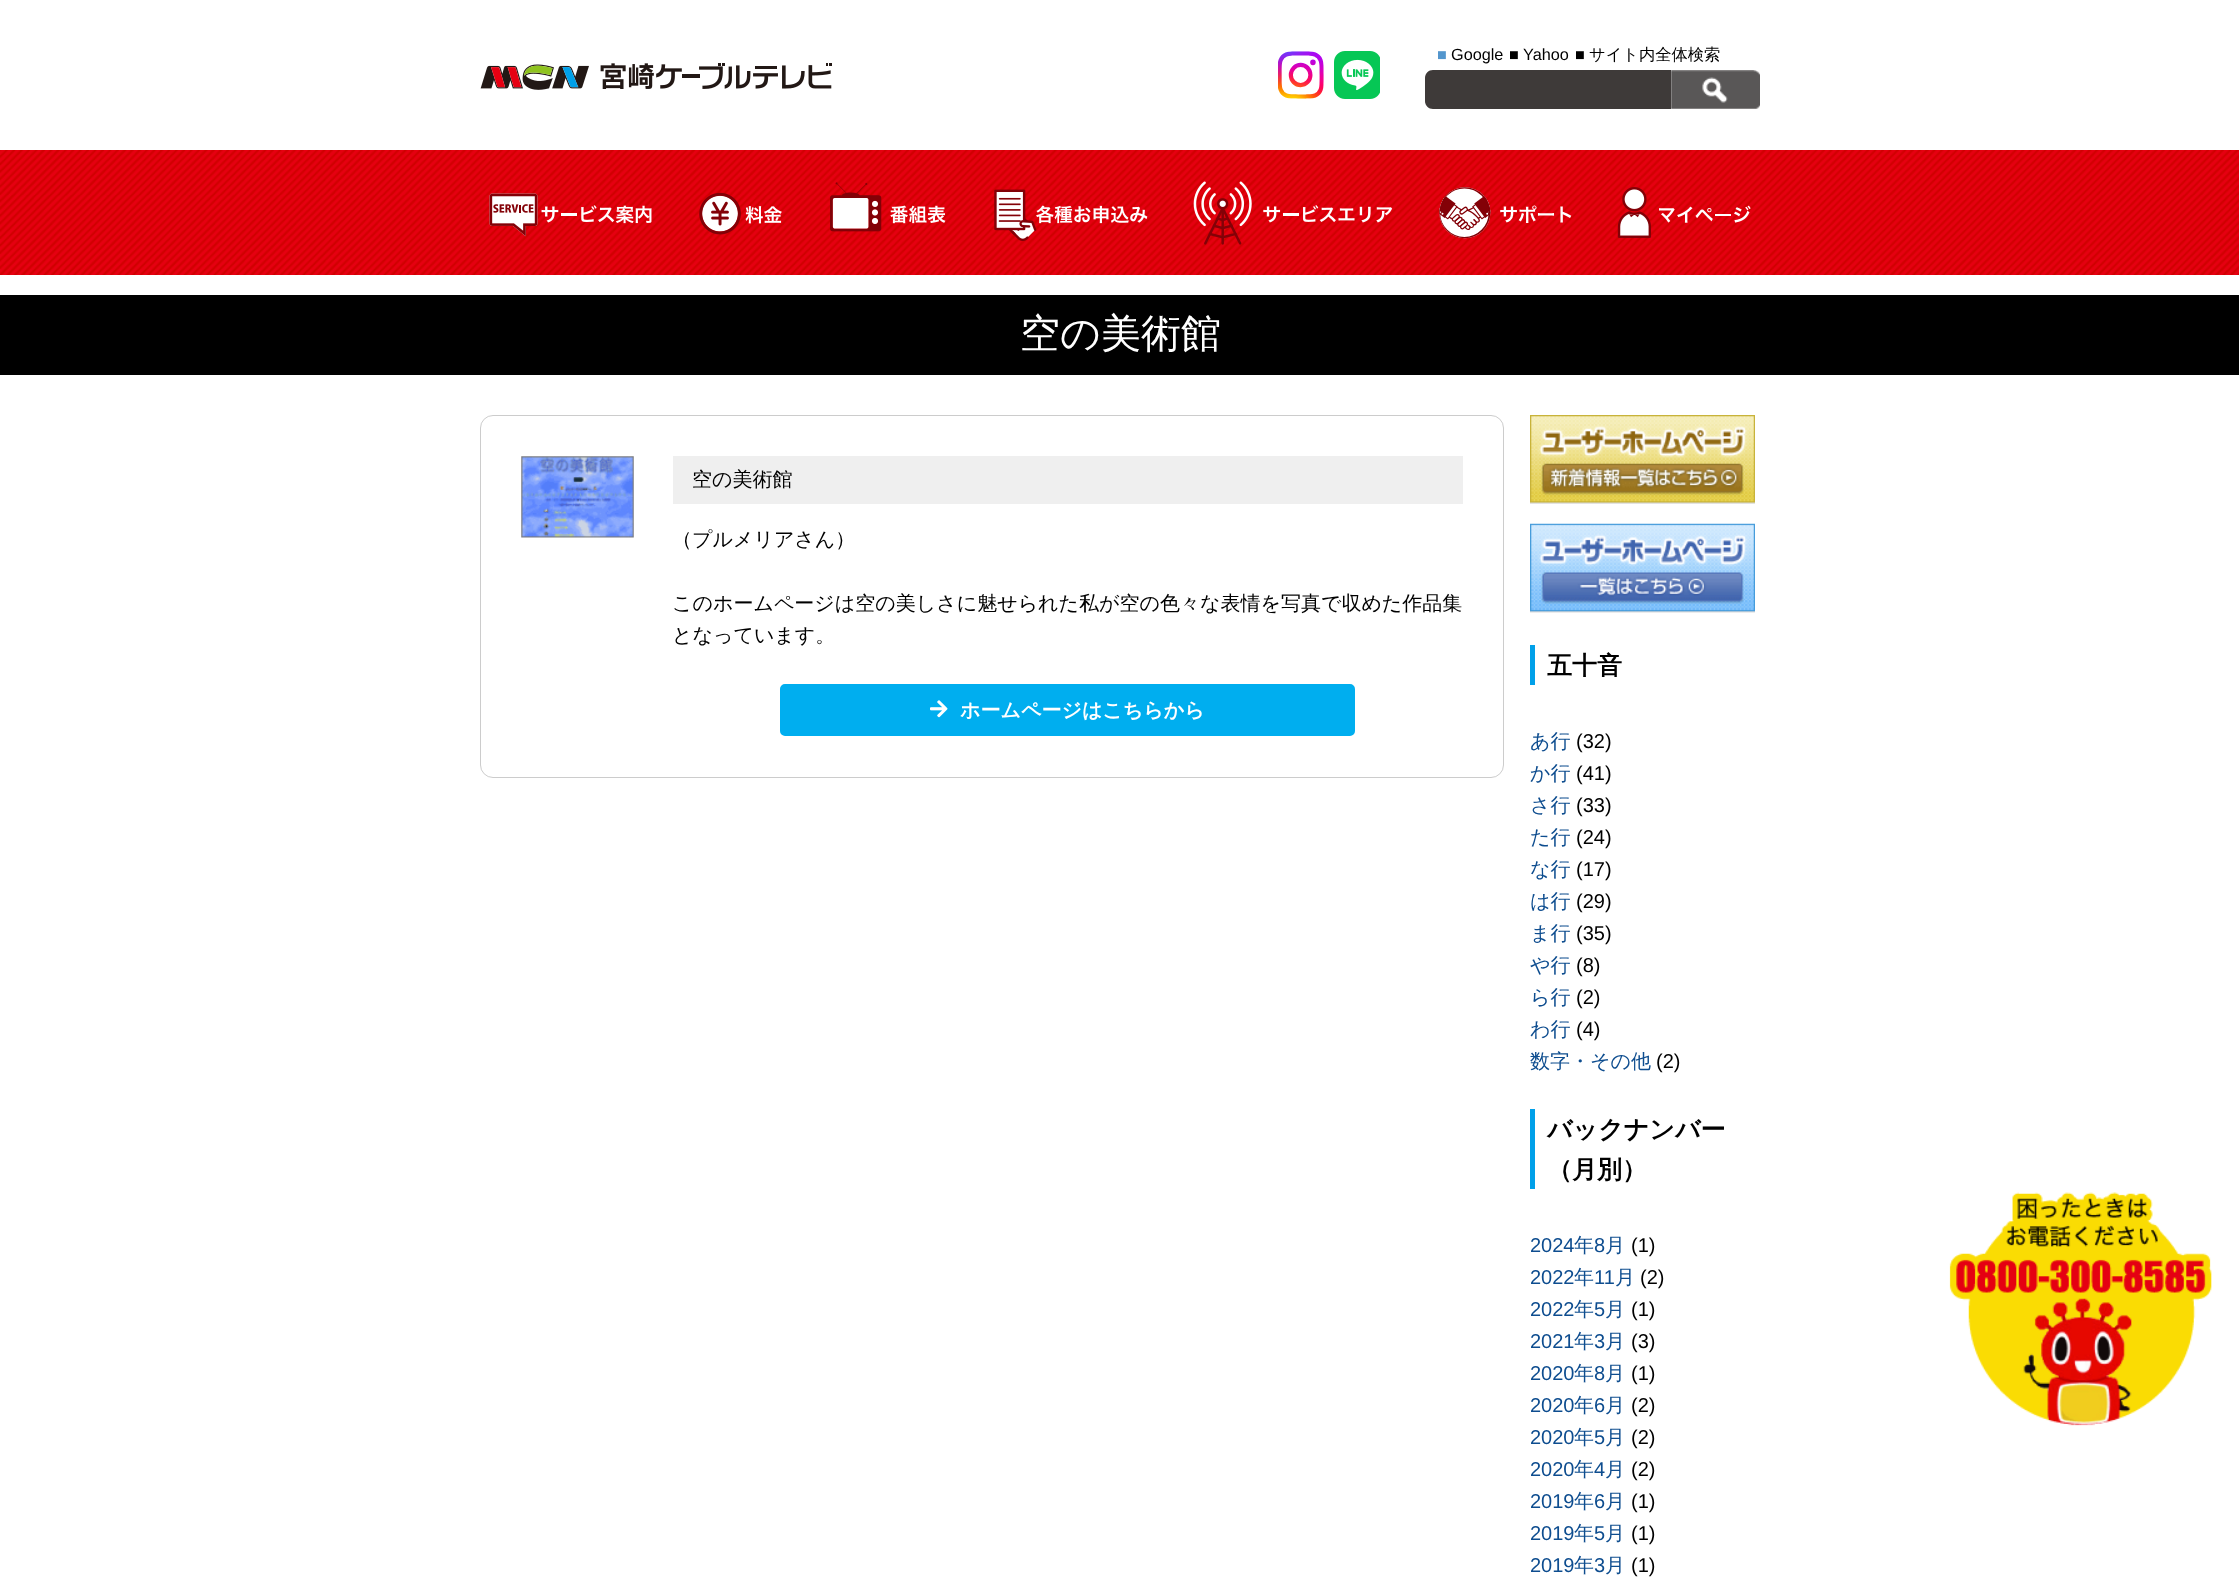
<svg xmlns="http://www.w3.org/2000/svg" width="2239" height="1585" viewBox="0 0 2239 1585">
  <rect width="100%" height="100%" fill="#ffffff"/>
  <image x="1278" y="51" width="46" height="48" href="img1.png"/>
  <image x="1334" y="51" width="46" height="48" href="img2.png"/>
  <text x="1437" y="60" font-family="Liberation Sans" font-size="16.25" fill="#5396cd">■</text>
  <text x="1451" y="60" font-family="Liberation Sans" font-size="16.25" fill="#000000">Google</text>
  <text x="1509" y="60" font-family="Liberation Sans" font-size="16.25" fill="#000000">■ Yahoo</text>
  <text x="1575" y="60" font-family="Liberation Sans" font-size="16.25" fill="#000000">■</text>
  <text x="1589" y="60" font-family="WenQuanYi Zen Hei" font-size="16.25" font-weight="500" fill="#000000">サイト内全体検索</text>
  <path d="M1433 70H1671V109H1433C1428.5 109 1425 105.5 1425 101V78C1425 73.5 1428.5 70 1433 70Z" fill="#3e3a39"/>
  <image x="1671" y="70" width="89" height="39" href="img3.png"/>
  <image x="480" y="63" width="352" height="27" href="img4.png"/>
  <image x="0" y="150" width="2239" height="125" href="img5.png"/>
  <image x="489" y="193" width="163" height="44" href="img6.png"/>
  <image x="699" y="192" width="83" height="43" href="img7.png"/>
  <image x="830" y="182" width="116" height="50" href="img8.png"/>
  <image x="994" y="189" width="154" height="52" href="img9.png"/>
  <image x="1193" y="181" width="200" height="64" href="img10.png"/>
  <image x="1439" y="187" width="133" height="52" href="img11.png"/>
  <image x="1617" y="187" width="134" height="51" href="img12.png"/>
  <rect x="0" y="295" width="2239" height="80" fill="#000000"/>
  <text x="1020" y="347" font-family="WenQuanYi Zen Hei" font-size="40" font-weight="500" fill="#ffffff">空の美術館</text>
  <rect x="480.5" y="415.5" width="1023" height="362" rx="12.5" fill="none" stroke="#cccccc"/>
  <image x="521" y="456" width="113" height="82" href="img13.png"/>
  <rect x="673" y="456" width="790" height="48" fill="#efefef"/>
  <text x="692" y="486" font-family="WenQuanYi Zen Hei" font-size="20" font-weight="500" fill="#000000">空の美術館</text>
  <text x="672" y="546" font-family="WenQuanYi Zen Hei" font-size="20" font-weight="500" fill="#000000">（プルメリアさん）</text>
  <text x="672" y="610" font-family="WenQuanYi Zen Hei" font-size="20" font-weight="500" fill="#000000">このホームページは空の美しさに魅せられた私が空の色々な表情を写真で収めた作品集</text>
  <text x="672" y="642" font-family="WenQuanYi Zen Hei" font-size="20" font-weight="500" fill="#000000">となっています。</text>
  <rect x="781.5" y="685.5" width="572" height="49" rx="3.5" fill="#00aeef" stroke="#00aeef" stroke-width="3"/>
  <image x="930" y="700" width="18" height="18" href="img14.png"/>
  <text x="960" y="717" font-family="WenQuanYi Zen Hei" font-size="20" font-weight="bold" fill="#ffffff">ホームページはこちらから</text>
  <image x="1530" y="415" width="225" height="89" href="img15.png"/>
  <image x="1530" y="523" width="225" height="90" href="img16.png"/>
  <rect x="1530" y="645" width="5" height="40" fill="#00a0e9"/>
  <text x="1547" y="674" font-family="WenQuanYi Zen Hei" font-size="25" font-weight="bold" fill="#000000">五十音</text>
  <text x="1530" y="748" font-family="WenQuanYi Zen Hei" font-size="20" font-weight="500" fill="#0e4d8f">あ行</text>
  <text x="1576" y="748" font-family="Liberation Sans" font-size="20" fill="#000000">(32)</text>
  <text x="1530" y="780" font-family="WenQuanYi Zen Hei" font-size="20" font-weight="500" fill="#0e4d8f">か行</text>
  <text x="1576" y="780" font-family="Liberation Sans" font-size="20" fill="#000000">(41)</text>
  <text x="1530" y="812" font-family="WenQuanYi Zen Hei" font-size="20" font-weight="500" fill="#0e4d8f">さ行</text>
  <text x="1576" y="812" font-family="Liberation Sans" font-size="20" fill="#000000">(33)</text>
  <text x="1530" y="844" font-family="WenQuanYi Zen Hei" font-size="20" font-weight="500" fill="#0e4d8f">た行</text>
  <text x="1576" y="844" font-family="Liberation Sans" font-size="20" fill="#000000">(24)</text>
  <text x="1530" y="876" font-family="WenQuanYi Zen Hei" font-size="20" font-weight="500" fill="#0e4d8f">な行</text>
  <text x="1576" y="876" font-family="Liberation Sans" font-size="20" fill="#000000">(17)</text>
  <text x="1530" y="908" font-family="WenQuanYi Zen Hei" font-size="20" font-weight="500" fill="#0e4d8f">は行</text>
  <text x="1576" y="908" font-family="Liberation Sans" font-size="20" fill="#000000">(29)</text>
  <text x="1530" y="940" font-family="WenQuanYi Zen Hei" font-size="20" font-weight="500" fill="#0e4d8f">ま行</text>
  <text x="1576" y="940" font-family="Liberation Sans" font-size="20" fill="#000000">(35)</text>
  <text x="1530" y="972" font-family="WenQuanYi Zen Hei" font-size="20" font-weight="500" fill="#0e4d8f">や行</text>
  <text x="1576" y="972" font-family="Liberation Sans" font-size="20" fill="#000000">(8)</text>
  <text x="1530" y="1004" font-family="WenQuanYi Zen Hei" font-size="20" font-weight="500" fill="#0e4d8f">ら行</text>
  <text x="1576" y="1004" font-family="Liberation Sans" font-size="20" fill="#000000">(2)</text>
  <text x="1530" y="1036" font-family="WenQuanYi Zen Hei" font-size="20" font-weight="500" fill="#0e4d8f">わ行</text>
  <text x="1576" y="1036" font-family="Liberation Sans" font-size="20" fill="#000000">(4)</text>
  <text x="1530" y="1068" font-family="WenQuanYi Zen Hei" font-size="20" font-weight="500" fill="#0e4d8f">数字・その他</text>
  <text x="1656" y="1068" font-family="Liberation Sans" font-size="20" fill="#000000">(2)</text>
  <rect x="1530" y="1109" width="5" height="80" fill="#00a0e9"/>
  <text x="1547" y="1138" font-family="WenQuanYi Zen Hei" font-size="25" font-weight="bold" fill="#000000">バックナンバー</text>
  <text x="1547" y="1178" font-family="WenQuanYi Zen Hei" font-size="25" font-weight="bold" fill="#000000">（月別）</text>
  <text x="1530" y="1252" font-family="Liberation Sans" font-size="20" fill="#0e4d8f">2024</text>
  <text x="1574" y="1252" font-family="WenQuanYi Zen Hei" font-size="20" font-weight="500" fill="#0e4d8f">年</text>
  <text x="1594" y="1252" font-family="Liberation Sans" font-size="20" fill="#0e4d8f">8</text>
  <text x="1605" y="1252" font-family="WenQuanYi Zen Hei" font-size="20" font-weight="500" fill="#0e4d8f">月</text>
  <text x="1631" y="1252" font-family="Liberation Sans" font-size="20" fill="#000000">(1)</text>
  <text x="1530" y="1284" font-family="Liberation Sans" font-size="20" fill="#0e4d8f">2022</text>
  <text x="1574" y="1284" font-family="WenQuanYi Zen Hei" font-size="20" font-weight="500" fill="#0e4d8f">年</text>
  <text x="1594" y="1284" font-family="Liberation Sans" font-size="20" fill="#0e4d8f">11</text>
  <text x="1615" y="1284" font-family="WenQuanYi Zen Hei" font-size="20" font-weight="500" fill="#0e4d8f">月</text>
  <text x="1640" y="1284" font-family="Liberation Sans" font-size="20" fill="#000000">(2)</text>
  <text x="1530" y="1316" font-family="Liberation Sans" font-size="20" fill="#0e4d8f">2022</text>
  <text x="1574" y="1316" font-family="WenQuanYi Zen Hei" font-size="20" font-weight="500" fill="#0e4d8f">年</text>
  <text x="1594" y="1316" font-family="Liberation Sans" font-size="20" fill="#0e4d8f">5</text>
  <text x="1605" y="1316" font-family="WenQuanYi Zen Hei" font-size="20" font-weight="500" fill="#0e4d8f">月</text>
  <text x="1631" y="1316" font-family="Liberation Sans" font-size="20" fill="#000000">(1)</text>
  <text x="1530" y="1348" font-family="Liberation Sans" font-size="20" fill="#0e4d8f">2021</text>
  <text x="1574" y="1348" font-family="WenQuanYi Zen Hei" font-size="20" font-weight="500" fill="#0e4d8f">年</text>
  <text x="1594" y="1348" font-family="Liberation Sans" font-size="20" fill="#0e4d8f">3</text>
  <text x="1605" y="1348" font-family="WenQuanYi Zen Hei" font-size="20" font-weight="500" fill="#0e4d8f">月</text>
  <text x="1631" y="1348" font-family="Liberation Sans" font-size="20" fill="#000000">(3)</text>
  <text x="1530" y="1380" font-family="Liberation Sans" font-size="20" fill="#0e4d8f">2020</text>
  <text x="1574" y="1380" font-family="WenQuanYi Zen Hei" font-size="20" font-weight="500" fill="#0e4d8f">年</text>
  <text x="1594" y="1380" font-family="Liberation Sans" font-size="20" fill="#0e4d8f">8</text>
  <text x="1605" y="1380" font-family="WenQuanYi Zen Hei" font-size="20" font-weight="500" fill="#0e4d8f">月</text>
  <text x="1631" y="1380" font-family="Liberation Sans" font-size="20" fill="#000000">(1)</text>
  <text x="1530" y="1412" font-family="Liberation Sans" font-size="20" fill="#0e4d8f">2020</text>
  <text x="1574" y="1412" font-family="WenQuanYi Zen Hei" font-size="20" font-weight="500" fill="#0e4d8f">年</text>
  <text x="1594" y="1412" font-family="Liberation Sans" font-size="20" fill="#0e4d8f">6</text>
  <text x="1605" y="1412" font-family="WenQuanYi Zen Hei" font-size="20" font-weight="500" fill="#0e4d8f">月</text>
  <text x="1631" y="1412" font-family="Liberation Sans" font-size="20" fill="#000000">(2)</text>
  <text x="1530" y="1444" font-family="Liberation Sans" font-size="20" fill="#0e4d8f">2020</text>
  <text x="1574" y="1444" font-family="WenQuanYi Zen Hei" font-size="20" font-weight="500" fill="#0e4d8f">年</text>
  <text x="1594" y="1444" font-family="Liberation Sans" font-size="20" fill="#0e4d8f">5</text>
  <text x="1605" y="1444" font-family="WenQuanYi Zen Hei" font-size="20" font-weight="500" fill="#0e4d8f">月</text>
  <text x="1631" y="1444" font-family="Liberation Sans" font-size="20" fill="#000000">(2)</text>
  <text x="1530" y="1476" font-family="Liberation Sans" font-size="20" fill="#0e4d8f">2020</text>
  <text x="1574" y="1476" font-family="WenQuanYi Zen Hei" font-size="20" font-weight="500" fill="#0e4d8f">年</text>
  <text x="1594" y="1476" font-family="Liberation Sans" font-size="20" fill="#0e4d8f">4</text>
  <text x="1605" y="1476" font-family="WenQuanYi Zen Hei" font-size="20" font-weight="500" fill="#0e4d8f">月</text>
  <text x="1631" y="1476" font-family="Liberation Sans" font-size="20" fill="#000000">(2)</text>
  <text x="1530" y="1508" font-family="Liberation Sans" font-size="20" fill="#0e4d8f">2019</text>
  <text x="1574" y="1508" font-family="WenQuanYi Zen Hei" font-size="20" font-weight="500" fill="#0e4d8f">年</text>
  <text x="1594" y="1508" font-family="Liberation Sans" font-size="20" fill="#0e4d8f">6</text>
  <text x="1605" y="1508" font-family="WenQuanYi Zen Hei" font-size="20" font-weight="500" fill="#0e4d8f">月</text>
  <text x="1631" y="1508" font-family="Liberation Sans" font-size="20" fill="#000000">(1)</text>
  <text x="1530" y="1540" font-family="Liberation Sans" font-size="20" fill="#0e4d8f">2019</text>
  <text x="1574" y="1540" font-family="WenQuanYi Zen Hei" font-size="20" font-weight="500" fill="#0e4d8f">年</text>
  <text x="1594" y="1540" font-family="Liberation Sans" font-size="20" fill="#0e4d8f">5</text>
  <text x="1605" y="1540" font-family="WenQuanYi Zen Hei" font-size="20" font-weight="500" fill="#0e4d8f">月</text>
  <text x="1631" y="1540" font-family="Liberation Sans" font-size="20" fill="#000000">(1)</text>
  <text x="1530" y="1572" font-family="Liberation Sans" font-size="20" fill="#0e4d8f">2019</text>
  <text x="1574" y="1572" font-family="WenQuanYi Zen Hei" font-size="20" font-weight="500" fill="#0e4d8f">年</text>
  <text x="1594" y="1572" font-family="Liberation Sans" font-size="20" fill="#0e4d8f">3</text>
  <text x="1605" y="1572" font-family="WenQuanYi Zen Hei" font-size="20" font-weight="500" fill="#0e4d8f">月</text>
  <text x="1631" y="1572" font-family="Liberation Sans" font-size="20" fill="#000000">(1)</text>
  <image x="1949" y="1192" width="263" height="234" href="img17.png"/>
</svg>
